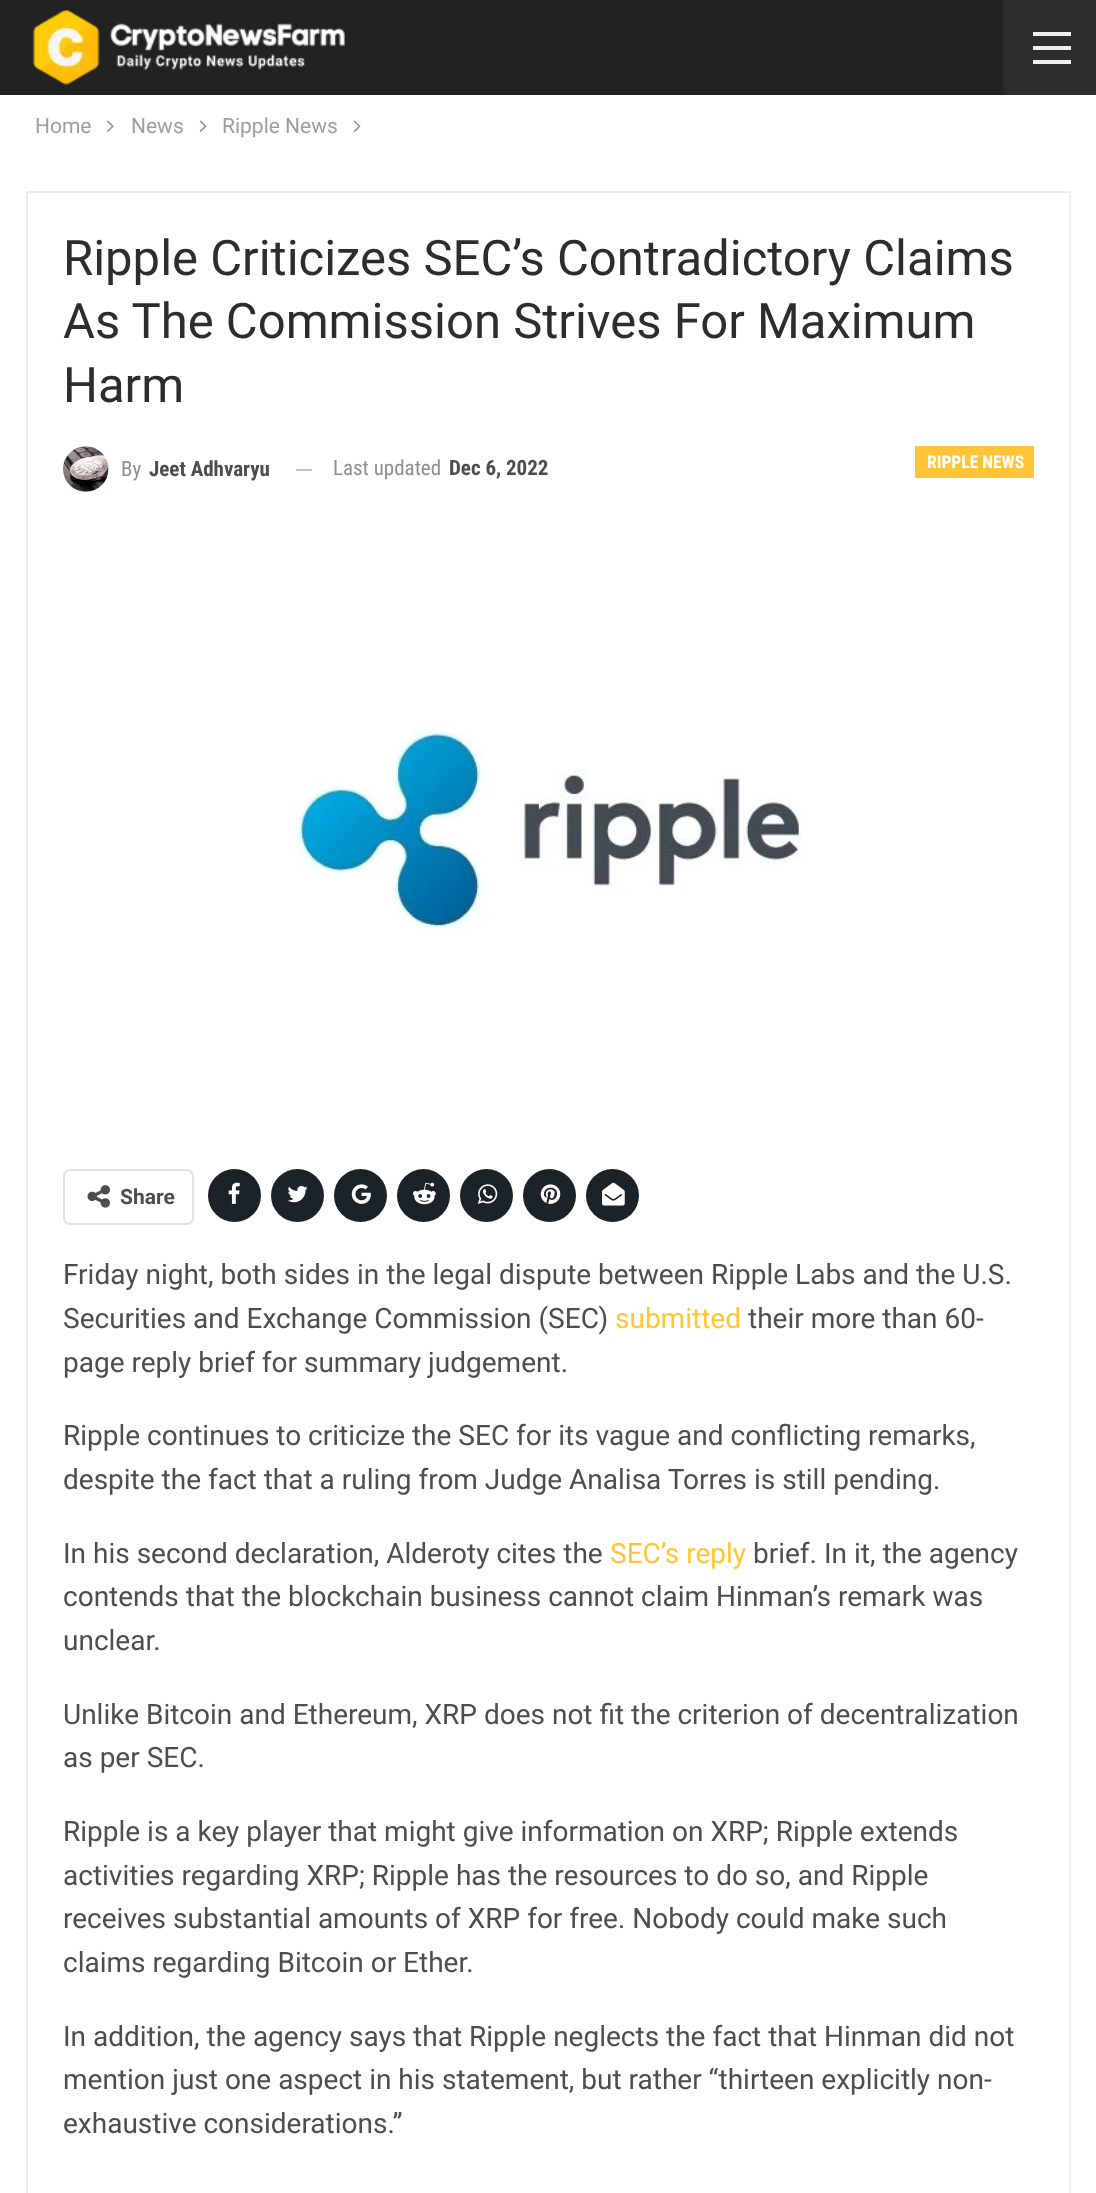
<svg xmlns="http://www.w3.org/2000/svg" width="1096" height="2193" viewBox="0 0 1096 2193">
  <rect width="100%" height="100%" fill="#ffffff"/>
  <rect x="0" y="0" width="1003" height="95" fill="#222222"/>
  <image x="32" y="10" width="313" height="75" href="img1.png"/>
  <rect x="1005" y="0" width="91" height="95" fill="#2d2d2d"/>
  <rect x="1003" y="0" width="2" height="95" fill="#2a2a2a"/>
  <rect x="1033" y="46" width="38" height="4" fill="#ecf0f1"/>
  <rect x="1033" y="32" width="38" height="4" fill="#ecf0f1"/>
  <rect x="1033" y="60" width="38" height="4" fill="#ecf0f1"/>
  <text x="35" y="133" font-family="Roboto" font-size="21" fill="#9e9e9e">Home</text>
  <image x="107" y="120" width="7" height="12" href="img2.png"/>
  <text x="131" y="133" font-family="Roboto" font-size="21" fill="#9e9e9e">News</text>
  <image x="199" y="120" width="8" height="12" href="img3.png"/>
  <text x="222" y="133" font-family="Roboto" font-size="21" fill="#9e9e9e">Ripple News</text>
  <image x="353" y="120" width="8" height="12" href="img3.png"/>
  <rect x="27" y="192" width="1043" height="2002" fill="none" stroke="#ededed" stroke-width="2"/>
  <text x="63" y="275" font-family="Roboto" font-size="49" fill="#2d2d2d">Ripple Criticizes SEC’s Contradictory Claims</text>
  <text x="63" y="338" font-family="Roboto" font-size="49" fill="#2d2d2d">As The Commission Strives For Maximum</text>
  <text x="63" y="402" font-family="Roboto" font-size="49" fill="#2d2d2d">Harm</text>
  <image x="63" y="446" width="46" height="46" href="img4.png"/>
  <text x="121" y="476" font-family="Roboto Condensed" font-size="21" fill="#8f8f8f">By</text>
  <text x="149" y="476" font-family="Roboto Condensed" font-size="21" font-weight="bold" fill="#4d4d4d">Jeet Adhvaryu</text>
  <rect x="296" y="469" width="16" height="2" fill="#c4c4c4"/>
  <text x="333" y="475" font-family="Roboto Condensed" font-size="21" fill="#8f8f8f">Last updated</text>
  <text x="449" y="475" font-family="Roboto Condensed" font-size="21" font-weight="bold" fill="#4d4d4d">Dec 6, 2022</text>
  <rect x="915" y="446" width="119" height="32" fill="#ffc536"/>
  <text x="927" y="468" font-family="Roboto Condensed" font-size="17.5" font-weight="bold" fill="#ffffff">RIPPLE NEWS</text>
  <image x="296" y="730" width="506" height="201" href="img5.png"/>
  <rect x="64" y="1170" width="129" height="54" rx="6" fill="none" stroke="#e2e2e2" stroke-width="2"/>
  <image x="87" y="1185" width="23" height="23" href="img6.png"/>
  <text x="120" y="1204" font-family="Roboto" font-size="21" font-weight="bold" fill="#4d4d4d">Share</text>
  <circle cx="234.5" cy="1195.5" r="26.5" fill="#1b2228"/>
  <image x="228" y="1182" width="12" height="22" href="img7.png"/>
  <circle cx="297.5" cy="1195.5" r="26.5" fill="#1b2228"/>
  <image x="287" y="1186" width="21" height="17" href="img8.png"/>
  <circle cx="360.5" cy="1195.5" r="26.5" fill="#1b2228"/>
  <image x="351" y="1184" width="20" height="20" href="img9.png"/>
  <circle cx="423.5" cy="1195.5" r="26.5" fill="#1b2228"/>
  <image x="413" y="1182" width="23" height="23" href="img10.png"/>
  <circle cx="486.5" cy="1195.5" r="26.5" fill="#1b2228"/>
  <image x="477" y="1184" width="21" height="20" href="img11.png"/>
  <circle cx="549.5" cy="1195.5" r="26.5" fill="#1b2228"/>
  <image x="540" y="1184" width="21" height="20" href="img12.png"/>
  <circle cx="612.5" cy="1195.5" r="26.5" fill="#1b2228"/>
  <image x="602" y="1182" width="23" height="24" href="img13.png"/>
  <text x="63" y="1284" font-family="Roboto" font-size="28" fill="#4d4d4d">Friday night, both sides in the legal dispute between Ripple Labs and the U.S.</text>
  <text x="63" y="1328" font-family="Roboto" font-size="28" fill="#4d4d4d">Securities and Exchange Commission (SEC)</text>
  <text x="615" y="1328" font-family="Roboto" font-size="28" fill="#ffc536">submitted</text>
  <text x="748" y="1328" font-family="Roboto" font-size="28" fill="#4d4d4d">their more than 60-</text>
  <text x="63" y="1372" font-family="Roboto" font-size="28" fill="#4d4d4d">page reply brief for summary judgement.</text>
  <text x="63" y="1445" font-family="Roboto" font-size="28" fill="#4d4d4d">Ripple continues to criticize the SEC for its vague and conflicting remarks,</text>
  <text x="63" y="1489" font-family="Roboto" font-size="28" fill="#4d4d4d">despite the fact that a ruling from Judge Analisa Torres is still pending.</text>
  <text x="63" y="1563" font-family="Roboto" font-size="28" fill="#4d4d4d">In his second declaration, Alderoty cites the</text>
  <text x="610" y="1563" font-family="Roboto" font-size="28" fill="#ffc536">SEC’s reply</text>
  <text x="753" y="1563" font-family="Roboto" font-size="28" fill="#4d4d4d">brief. In it, the agency</text>
  <text x="63" y="1606" font-family="Roboto" font-size="28" fill="#4d4d4d">contends that the blockchain business cannot claim Hinman’s remark was</text>
  <text x="63" y="1650" font-family="Roboto" font-size="28" fill="#4d4d4d">unclear.</text>
  <text x="63" y="1724" font-family="Roboto" font-size="28" fill="#4d4d4d">Unlike Bitcoin and Ethereum, XRP does not fit the criterion of decentralization</text>
  <text x="63" y="1767" font-family="Roboto" font-size="28" fill="#4d4d4d">as per SEC.</text>
  <text x="63" y="1841" font-family="Roboto" font-size="28" fill="#4d4d4d">Ripple is a key player that might give information on XRP; Ripple extends</text>
  <text x="63" y="1885" font-family="Roboto" font-size="28" fill="#4d4d4d">activities regarding XRP; Ripple has the resources to do so, and Ripple</text>
  <text x="63" y="1928" font-family="Roboto" font-size="28" fill="#4d4d4d">receives substantial amounts of XRP for free. Nobody could make such</text>
  <text x="63" y="1972" font-family="Roboto" font-size="28" fill="#4d4d4d">claims regarding Bitcoin or Ether.</text>
  <text x="63" y="2046" font-family="Roboto" font-size="28" fill="#4d4d4d">In addition, the agency says that Ripple neglects the fact that Hinman did not</text>
  <text x="63" y="2089" font-family="Roboto" font-size="28" fill="#4d4d4d">mention just one aspect in his statement, but rather “thirteen explicitly non-</text>
  <text x="63" y="2133" font-family="Roboto" font-size="28" fill="#4d4d4d">exhaustive considerations.”</text>
</svg>
